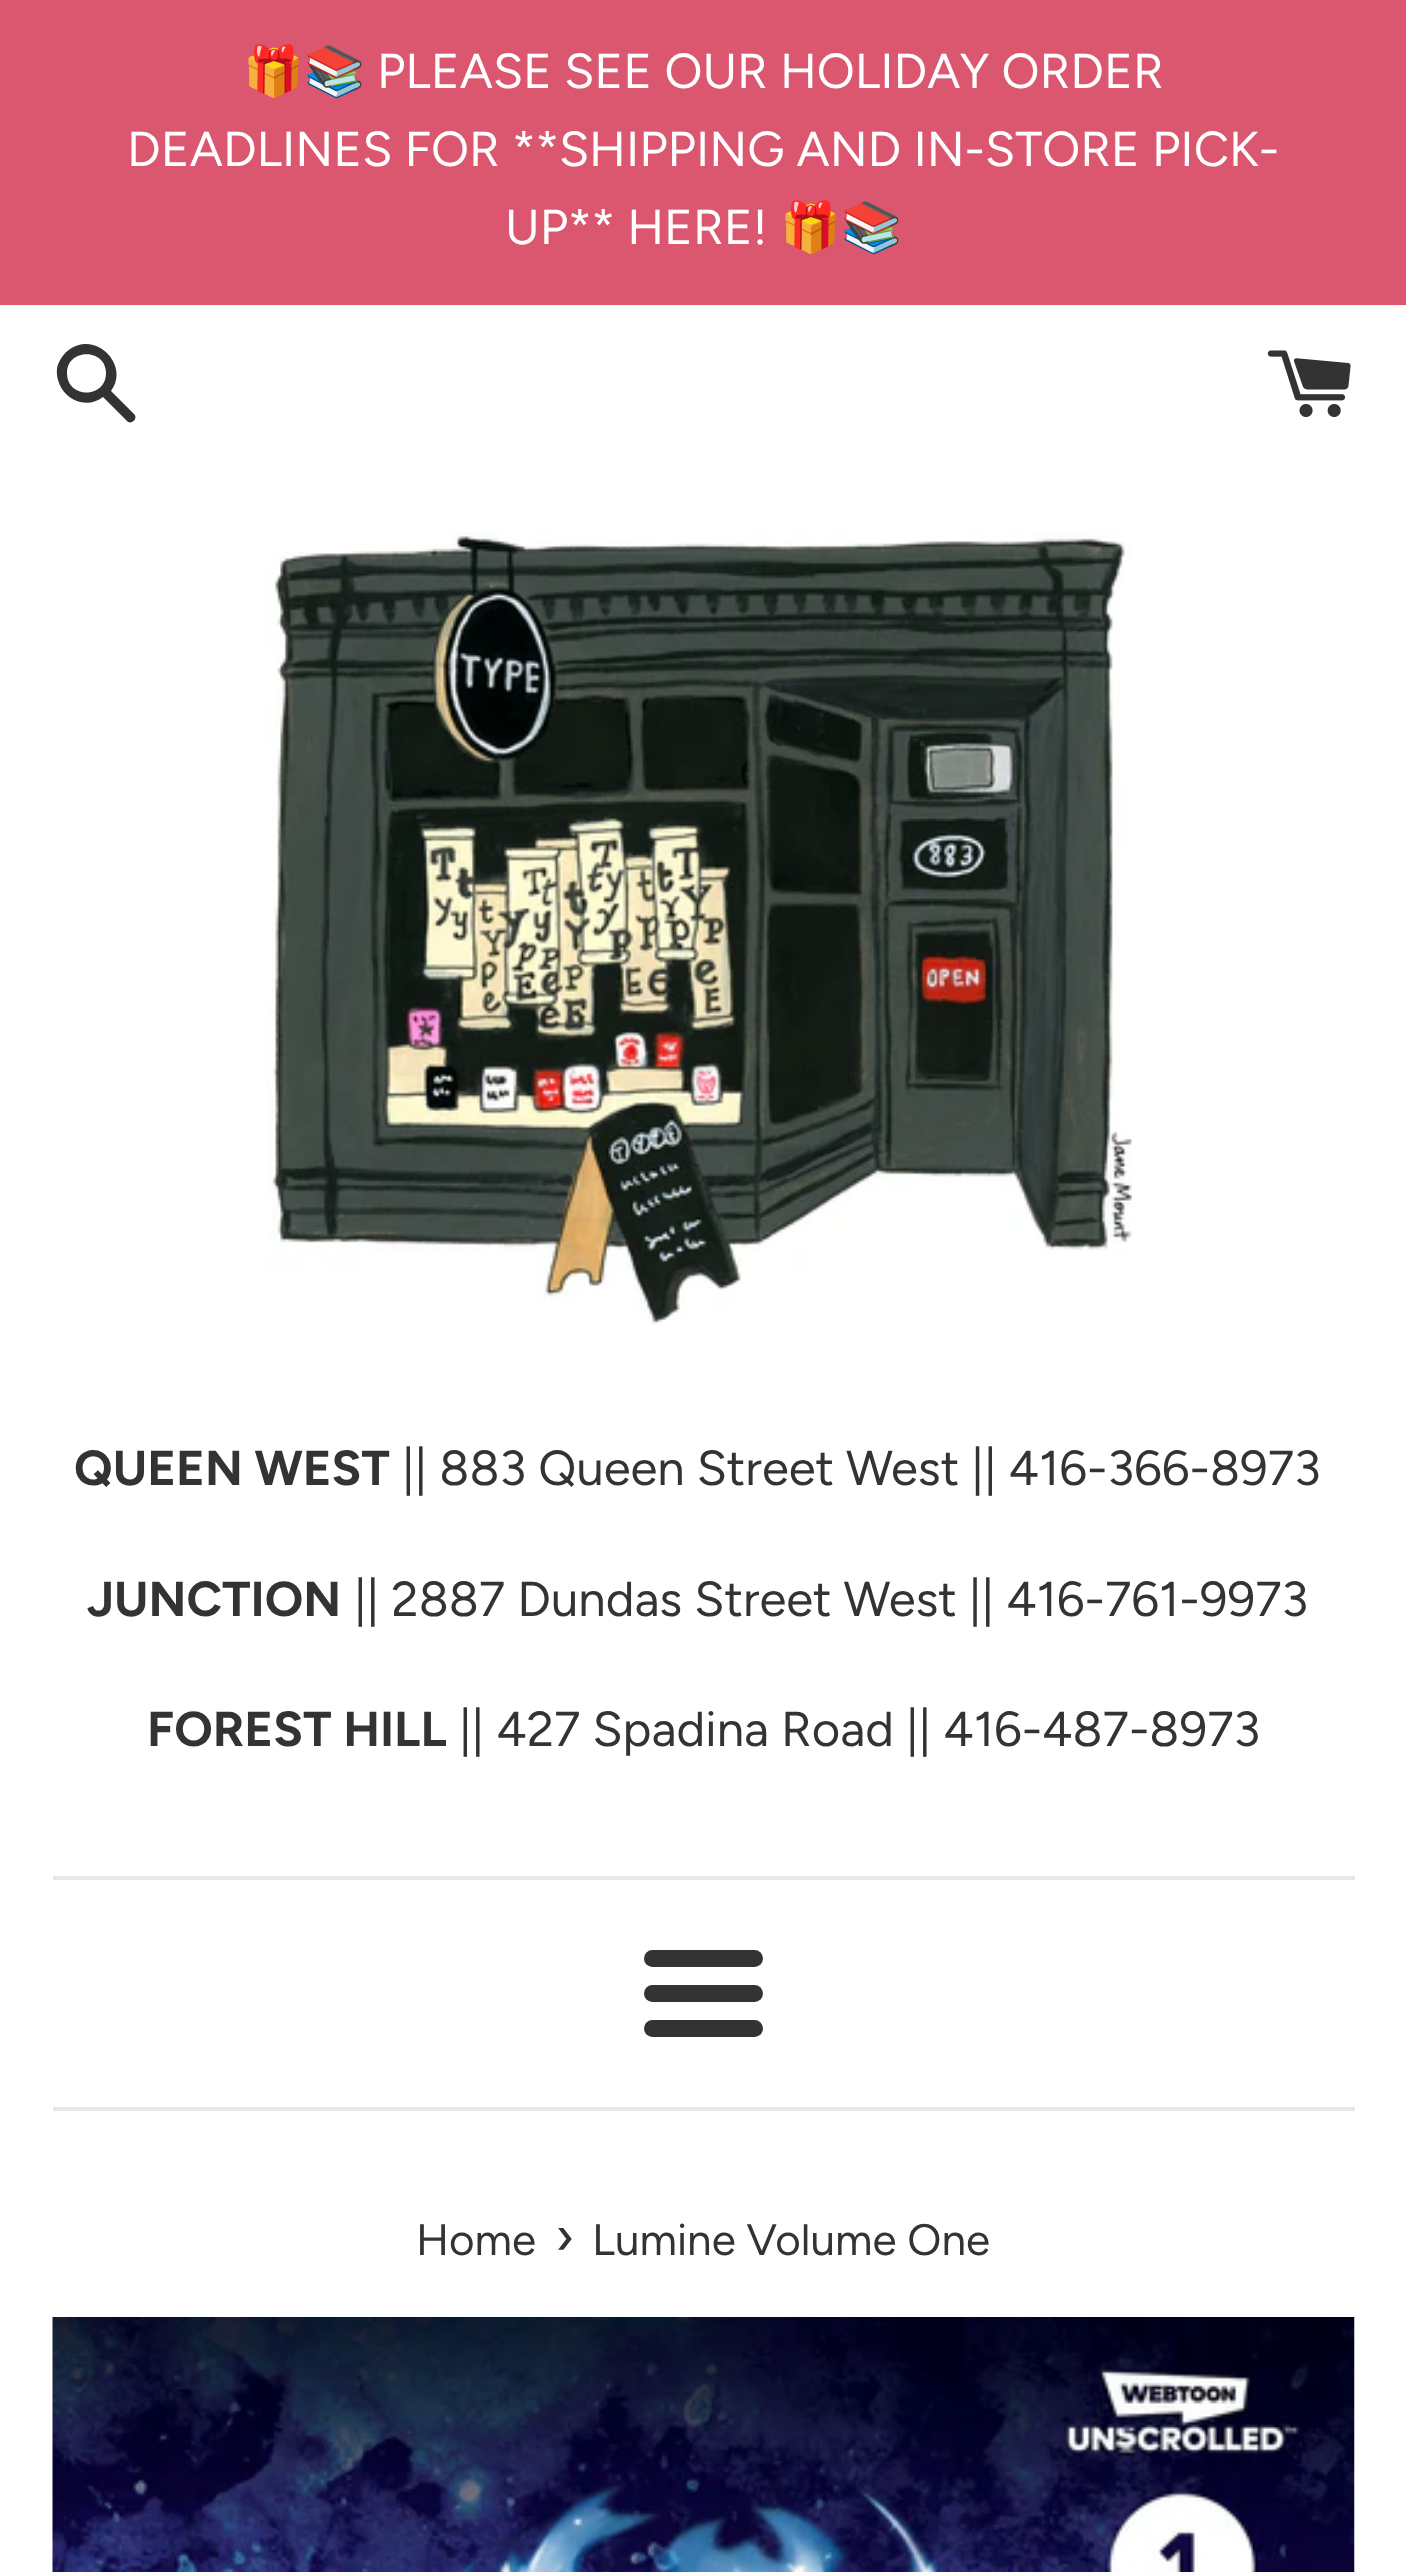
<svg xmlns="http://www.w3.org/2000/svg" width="1406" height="2572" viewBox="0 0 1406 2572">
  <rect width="100%" height="100%" fill="#ffffff"/>
  <rect x="0" y="0" width="1406" height="305" fill="#db5770"/>
  <text x="243" y="88" font-family="Noto Color Emoji" font-size="49" fill="#ffffff">🎁📚</text>
  <text x="377" y="88" font-family="Figtree" font-size="49" fill="#ffffff">PLEASE SEE OUR HOLIDAY ORDER</text>
  <text x="127" y="166" font-family="Figtree" font-size="49" fill="#ffffff">DEADLINES FOR **SHIPPING AND IN-STORE PICK-</text>
  <text x="505" y="244" font-family="Figtree" font-size="49" fill="#ffffff">UP** HERE!</text>
  <text x="780" y="244" font-family="Noto Color Emoji" font-size="49" fill="#ffffff">🎁📚</text>
  <path d="M134 414L111 391C130 366 97 331 70 349C64 353 59 360 57 368C56 377 59 387 66 394C76 404 92 406 103 397L128 422C133 424 138 418 134 414ZM67 373C67 348 106 348 106 373C106 399 67 399 67 373Z" fill="#333333"/>
  <image x="1267" y="350" width="84" height="68" href="img1.png"/>
  <image x="266" y="532" width="866" height="793" href="img2.png"/>
  <text x="74" y="1485" font-family="Figtree" font-size="49" font-weight="bold" fill="#333333">QUEEN WEST</text>
  <text x="402" y="1485" font-family="Figtree" font-size="49" fill="#333333">|| 883 Queen Street West || 416-366-8973</text>
  <text x="87" y="1616" font-family="Figtree" font-size="49" font-weight="bold" fill="#333333">JUNCTION</text>
  <text x="354" y="1616" font-family="Figtree" font-size="49" fill="#333333">|| 2887 Dundas Street West || 416-761-9973</text>
  <text x="147" y="1746" font-family="Figtree" font-size="49" font-weight="bold" fill="#333333">FOREST HILL</text>
  <text x="459" y="1746" font-family="Figtree" font-size="49" fill="#333333">|| 427 Spadina Road || 416-487-8973</text>
  <rect x="53" y="1876" width="1302" height="4" fill="#e8e8e8"/>
  <rect x="644" y="1950" width="119" height="17" rx="8.5" fill="#333333"/>
  <rect x="644" y="1985" width="119" height="17" rx="8.5" fill="#333333"/>
  <rect x="644" y="2020" width="119" height="17" rx="8.5" fill="#333333"/>
  <rect x="53" y="2107" width="1302" height="4" fill="#e8e8e8"/>
  <text x="416" y="2255" font-family="Figtree" font-size="44" fill="#333333">Home</text>
  <text x="555" y="2255" font-family="Figtree" font-size="54" fill="#333333">›</text>
  <text x="592" y="2255" font-family="Figtree" font-size="44" fill="#333333">Lumine Volume One</text>
  <image x="52" y="2317" width="1303" height="255" href="img3.png"/>
</svg>
